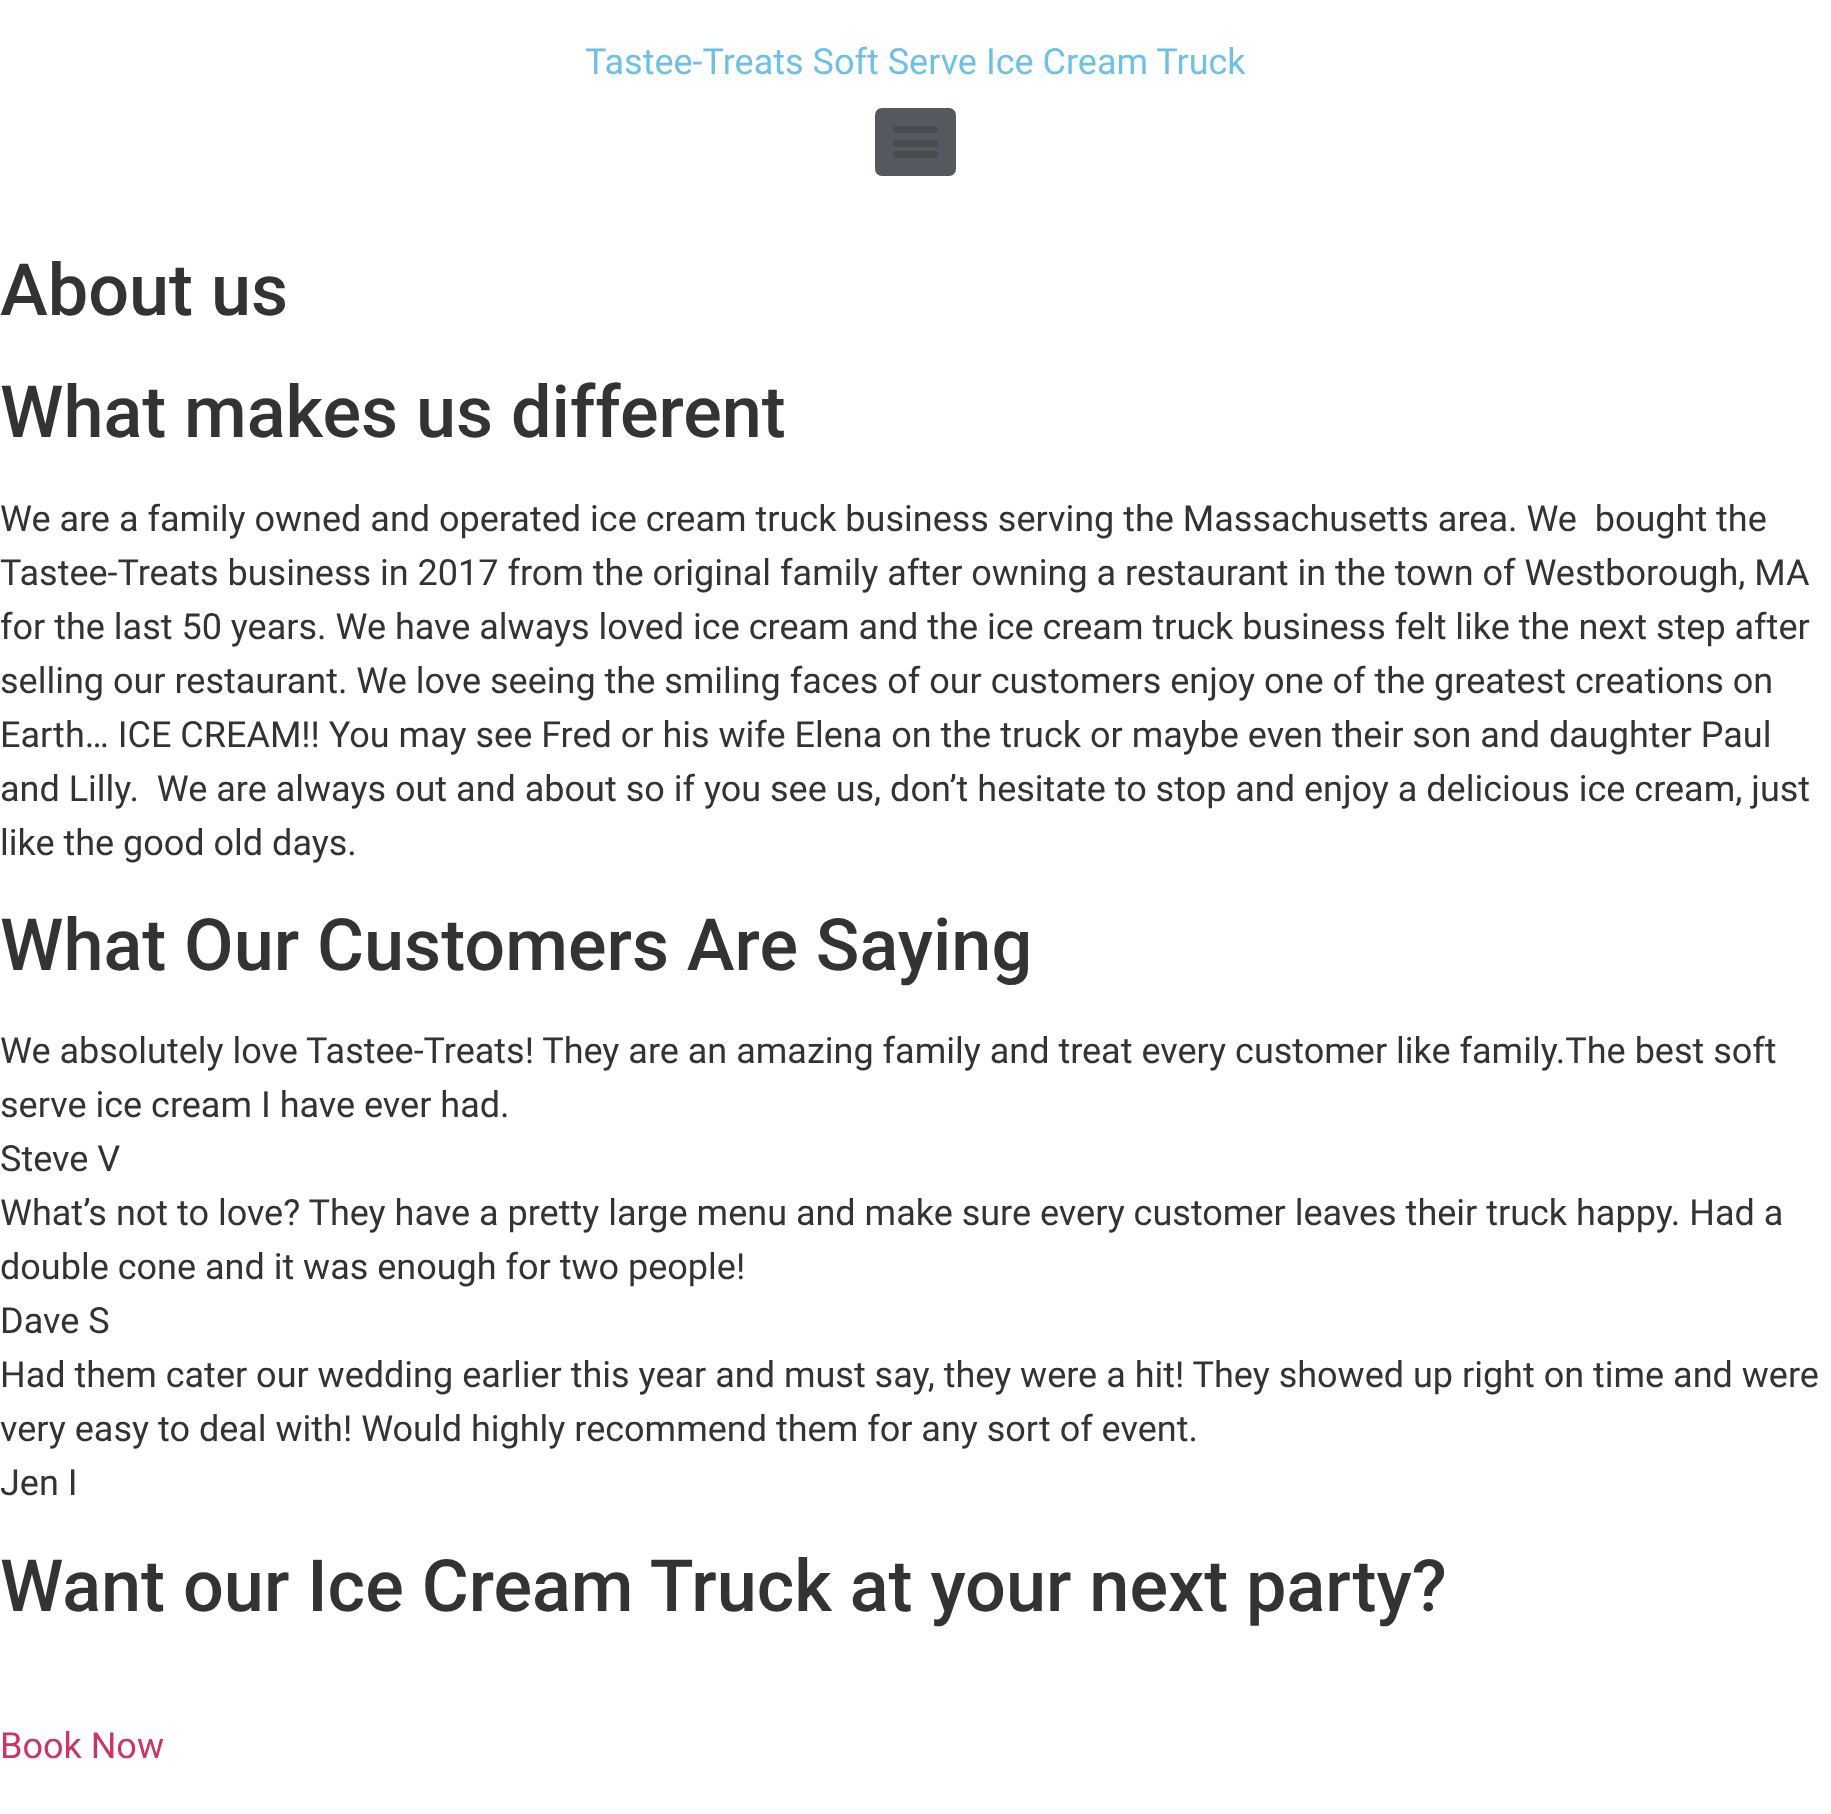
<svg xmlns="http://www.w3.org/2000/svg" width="1831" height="1814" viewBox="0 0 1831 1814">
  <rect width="100%" height="100%" fill="#ffffff"/>
  <text x="585" y="74" font-family="Roboto" font-size="36" fill="#6ec1e4">Tastee-Treats Soft Serve Ice Cream Truck</text>
  <rect x="875" y="108" width="81" height="68" rx="7" fill="#54595f"/>
  <rect x="893" y="140" width="45" height="7" rx="3.5" fill="#494c4f"/>
  <rect x="893" y="126" width="45" height="7" rx="3.5" fill="#494c4f"/>
  <rect x="893" y="151" width="45" height="7" rx="3.5" fill="#494c4f"/>
  <text x="0" y="315" font-family="Roboto" font-size="72" font-weight="500" fill="#333333">About us</text>
  <text x="0" y="437" font-family="Roboto" font-size="72" font-weight="500" fill="#333333">What makes us different</text>
  <text x="0" y="531" font-family="Roboto" font-size="36" fill="#333333" xml:space="preserve">We are a family owned and operated ice cream truck business serving the Massachusetts area. We  bought the</text>
  <text x="0" y="585" font-family="Roboto" font-size="36" fill="#333333">Tastee-Treats business in 2017 from the original family after owning a restaurant in the town of Westborough, MA</text>
  <text x="0" y="639" font-family="Roboto" font-size="36" fill="#333333">for the last 50 years. We have always loved ice cream and the ice cream truck business felt like the next step after</text>
  <text x="0" y="693" font-family="Roboto" font-size="36" fill="#333333">selling our restaurant. We love seeing the smiling faces of our customers enjoy one of the greatest creations on</text>
  <text x="0" y="747" font-family="Roboto" font-size="36" fill="#333333">Earth… ICE CREAM!! You may see Fred or his wife Elena on the truck or maybe even their son and daughter Paul</text>
  <text x="0" y="801" font-family="Roboto" font-size="36" fill="#333333" xml:space="preserve">and Lilly.  We are always out and about so if you see us, don’t hesitate to stop and enjoy a delicious ice cream, just</text>
  <text x="0" y="855" font-family="Roboto" font-size="36" fill="#333333">like the good old days.</text>
  <text x="0" y="970" font-family="Roboto" font-size="72" font-weight="500" fill="#333333">What Our Customers Are Saying</text>
  <text x="0" y="1063" font-family="Roboto" font-size="36" fill="#333333">We absolutely love Tastee-Treats! They are an amazing family and treat every customer like family.The best soft</text>
  <text x="0" y="1117" font-family="Roboto" font-size="36" fill="#333333">serve ice cream I have ever had.</text>
  <text x="0" y="1171" font-family="Roboto" font-size="36" fill="#333333">Steve V</text>
  <text x="0" y="1225" font-family="Roboto" font-size="36" fill="#333333">What’s not to love? They have a pretty large menu and make sure every customer leaves their truck happy. Had a</text>
  <text x="0" y="1279" font-family="Roboto" font-size="36" fill="#333333">double cone and it was enough for two people!</text>
  <text x="0" y="1333" font-family="Roboto" font-size="36" fill="#333333">Dave S</text>
  <text x="0" y="1387" font-family="Roboto" font-size="36" fill="#333333">Had them cater our wedding earlier this year and must say, they were a hit! They showed up right on time and were</text>
  <text x="0" y="1441" font-family="Roboto" font-size="36" fill="#333333">very easy to deal with! Would highly recommend them for any sort of event.</text>
  <text x="0" y="1495" font-family="Roboto" font-size="36" fill="#333333">Jen I</text>
  <text x="0" y="1611" font-family="Roboto" font-size="72" font-weight="500" fill="#333333">Want our Ice Cream Truck at your next party?</text>
  <text x="0" y="1758" font-family="Roboto" font-size="36" fill="#cc3366">Book Now</text>
</svg>
